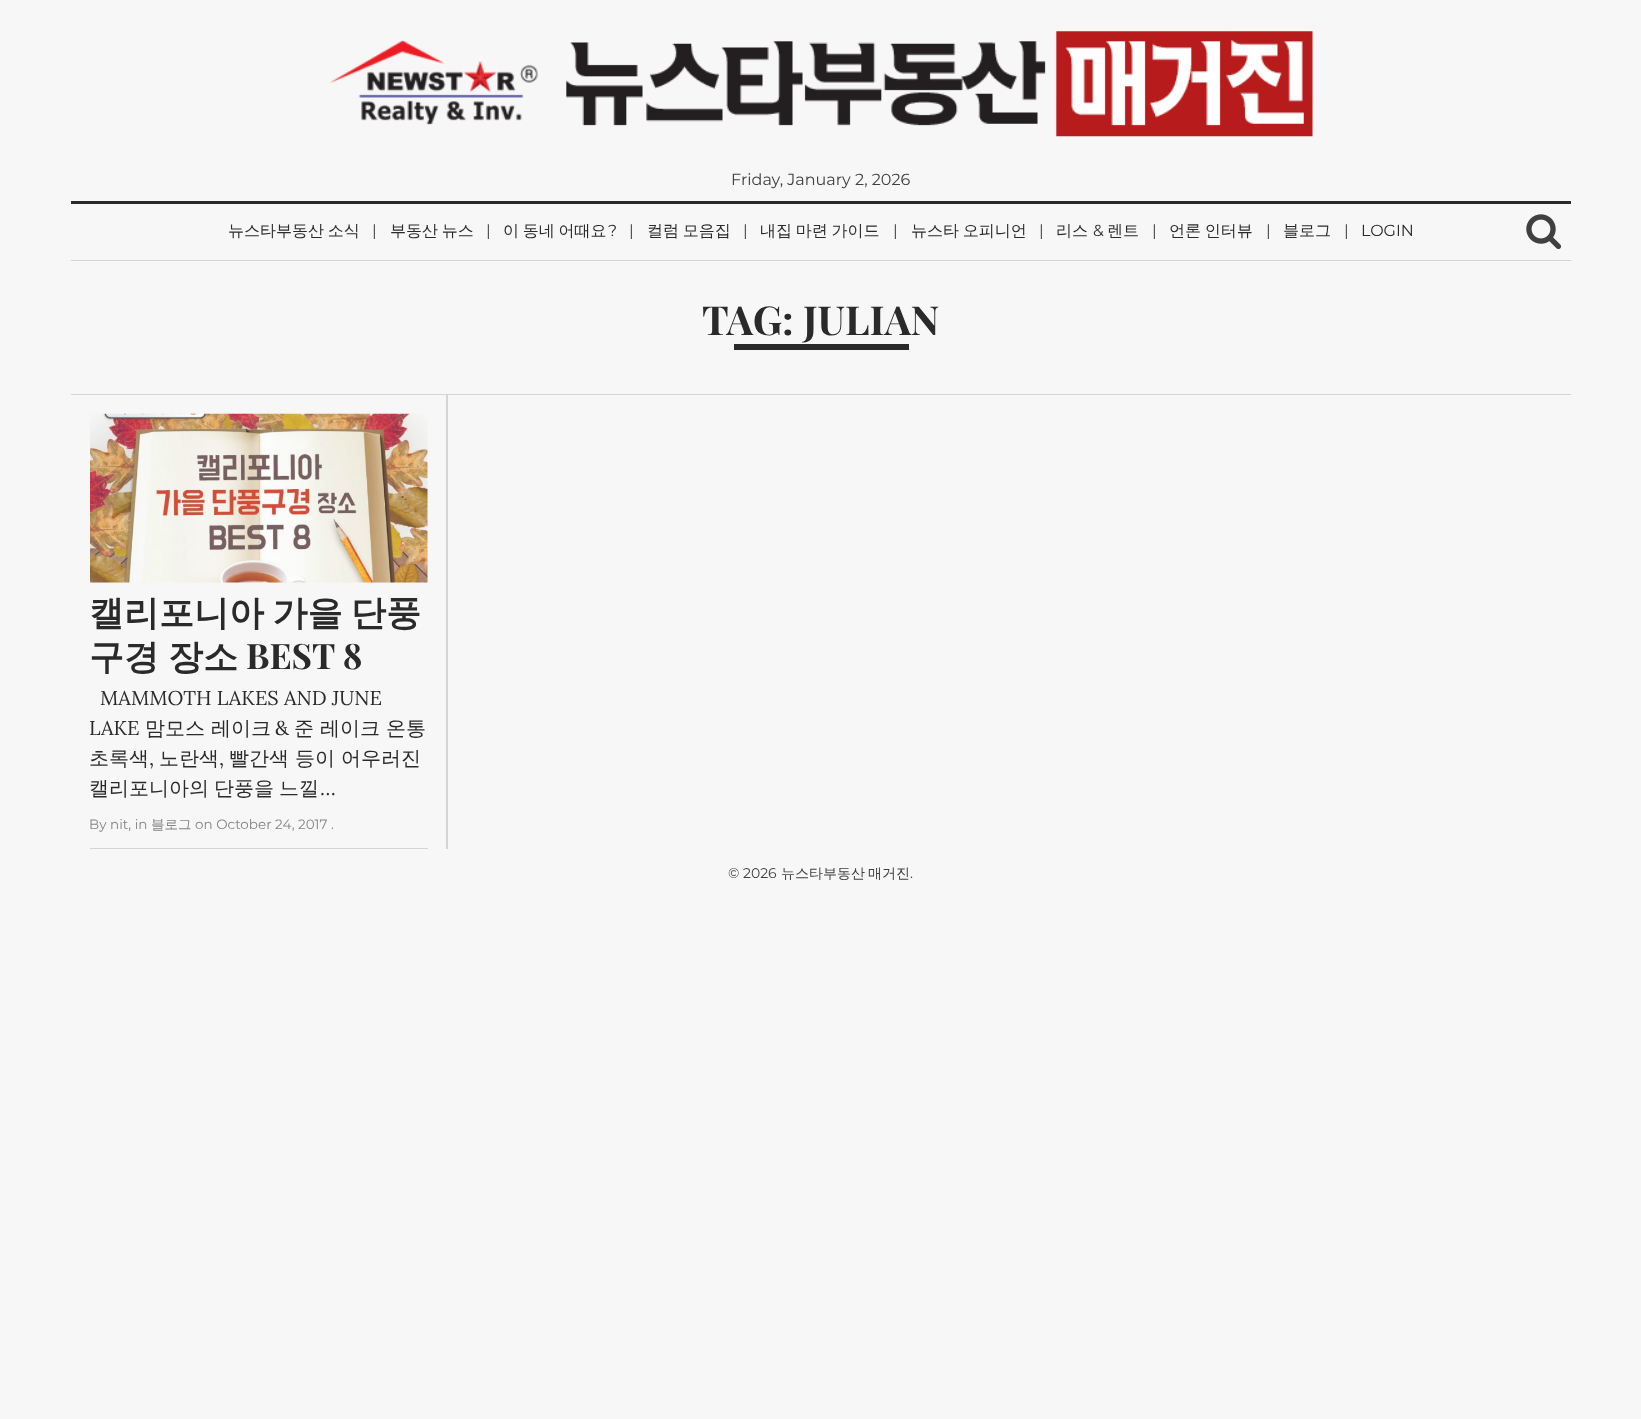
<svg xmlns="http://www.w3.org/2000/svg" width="1641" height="1419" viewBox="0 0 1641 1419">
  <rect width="100%" height="100%" fill="#f7f7f7"/>
  <image x="330" y="31" width="983" height="106" href="img1.png"/>
  <text x="731" y="185" font-family="Montserrat" font-size="16" font-weight="100" fill="#404040">Friday, January 2, 2026</text>
  <path d="M71 201V259V204H1571V201Z" fill="#2a2a2a"/>
  <rect x="71" y="260" width="1500" height="1" fill="#d5d5d5"/>
  <text x="228" y="236" word-spacing="-1" font-family="WenQuanYi Zen Hei" font-size="16" font-weight="500" fill="#2a2a2a">뉴스타부동산 소식</text>
  <text x="372" y="236" font-family="Montserrat" font-size="16" font-weight="100" fill="#404040">|</text>
  <text x="390" y="236" word-spacing="-1" font-family="WenQuanYi Zen Hei" font-size="16" font-weight="500" fill="#2a2a2a">부동산 뉴스</text>
  <text x="486" y="236" font-family="Montserrat" font-size="16" font-weight="100" fill="#404040">|</text>
  <text x="503" y="236" word-spacing="-1" font-family="WenQuanYi Zen Hei" font-size="16" font-weight="500" fill="#2a2a2a">이 동네 어때요</text>
  <text x="608" y="236" font-family="Montserrat" font-size="16" font-weight="100" fill="#2a2a2a">?</text>
  <text x="629" y="236" font-family="Montserrat" font-size="16" font-weight="100" fill="#404040">|</text>
  <text x="647" y="236" word-spacing="-1" font-family="WenQuanYi Zen Hei" font-size="16" font-weight="500" fill="#2a2a2a">컬럼 모음집</text>
  <text x="743" y="236" font-family="Montserrat" font-size="16" font-weight="100" fill="#404040">|</text>
  <text x="760" y="236" word-spacing="-1" font-family="WenQuanYi Zen Hei" font-size="16" font-weight="500" fill="#2a2a2a">내집 마련 가이드</text>
  <text x="893" y="236" font-family="Montserrat" font-size="16" font-weight="100" fill="#404040">|</text>
  <text x="911" y="236" word-spacing="-1" font-family="WenQuanYi Zen Hei" font-size="16" font-weight="500" fill="#2a2a2a">뉴스타 오피니언</text>
  <text x="1039" y="236" font-family="Montserrat" font-size="16" font-weight="100" fill="#404040">|</text>
  <text x="1056" y="236" font-family="WenQuanYi Zen Hei" font-size="16" font-weight="500" fill="#2a2a2a">리스</text>
  <text x="1093" y="236" font-family="Montserrat" font-size="16" font-weight="100" fill="#2a2a2a">&amp;</text>
  <text x="1107" y="236" font-family="WenQuanYi Zen Hei" font-size="16" font-weight="500" fill="#2a2a2a">렌트</text>
  <text x="1152" y="236" font-family="Montserrat" font-size="16" font-weight="100" fill="#404040">|</text>
  <text x="1169" y="236" word-spacing="-1" font-family="WenQuanYi Zen Hei" font-size="16" font-weight="500" fill="#2a2a2a">언론 인터뷰</text>
  <text x="1266" y="236" font-family="Montserrat" font-size="16" font-weight="100" fill="#404040">|</text>
  <text x="1283" y="236" font-family="WenQuanYi Zen Hei" font-size="16" font-weight="500" fill="#2a2a2a">블로그</text>
  <text x="1344" y="236" font-family="Montserrat" font-size="16" font-weight="100" fill="#404040">|</text>
  <text x="1361" y="236" font-family="Montserrat" font-size="16" font-weight="100" fill="#2a2a2a">LOGIN</text>
  <image x="1526" y="214" width="36" height="36" href="img2.png"/>
  <rect x="71" y="394" width="1500" height="1" fill="#d5d5d5"/>
  <text x="702" y="335" font-family="Playfair Display" font-size="40" font-weight="bold" fill="#2a2a2a">TAG: JULIAN</text>
  <rect x="734" y="344" width="175" height="6" fill="#2a2a2a"/>
  <path d="M73 849H448V395H446V849Z" fill="#d5d5d5"/>
  <image x="90" y="413" width="338" height="170" href="img3.png"/>
  <text x="89" y="625" word-spacing="-2" font-family="WenQuanYi Zen Hei" font-size="35" font-weight="bold" fill="#2a2a2a">캘리포니아 가을 단풍</text>
  <text x="89" y="669" font-family="WenQuanYi Zen Hei" font-size="35" font-weight="bold" fill="#2a2a2a">구경</text>
  <text x="168" y="669" font-family="WenQuanYi Zen Hei" font-size="35" font-weight="bold" fill="#2a2a2a">장소</text>
  <text x="246" y="669" font-family="Playfair Display" font-size="35" font-weight="bold" fill="#2a2a2a">BEST 8</text>
  <text x="100" y="705" font-family="Lora" font-size="20" fill="#2a2a2a">MAMMOTH LAKES AND JUNE</text>
  <text x="89" y="735" font-family="Lora" font-size="20" fill="#2a2a2a">LAKE</text>
  <text x="145" y="735" font-family="WenQuanYi Zen Hei" font-size="20" font-weight="500" fill="#2a2a2a">맘모스 레이크</text>
  <text x="275" y="735" font-family="Lora" font-size="20" fill="#2a2a2a">&amp;</text>
  <text x="294" y="735" font-family="WenQuanYi Zen Hei" font-size="20" font-weight="500" fill="#2a2a2a">준 레이크 온통</text>
  <text x="89" y="765" font-family="WenQuanYi Zen Hei" font-size="20" font-weight="500" fill="#2a2a2a">초록색</text>
  <text x="149" y="765" font-family="Lora" font-size="20" fill="#2a2a2a">,</text>
  <text x="159" y="765" font-family="WenQuanYi Zen Hei" font-size="20" font-weight="500" fill="#2a2a2a">노란색</text>
  <text x="219" y="765" font-family="Lora" font-size="20" fill="#2a2a2a">,</text>
  <text x="229" y="765" font-family="WenQuanYi Zen Hei" font-size="20" font-weight="500" fill="#2a2a2a">빨간색 등이 어우러진</text>
  <text x="89" y="795" word-spacing="-1" font-family="WenQuanYi Zen Hei" font-size="20" font-weight="500" fill="#2a2a2a">캘리포니아의 단풍을 느낄</text>
  <text x="320" y="795" font-family="Lora" font-size="20" fill="#2a2a2a">…</text>
  <text x="89" y="829" font-family="Montserrat" font-size="13.5" font-weight="100" fill="#848484">By nit, in</text>
  <text x="151" y="829" font-family="WenQuanYi Zen Hei" font-size="13.5" font-weight="500" fill="#848484">블로그</text>
  <text x="195" y="829" font-family="Montserrat" font-size="13.5" font-weight="100" fill="#848484">on October 24, 2017 .</text>
  <rect x="90" y="848" width="338" height="1" fill="#d5d5d5"/>
  <text x="728" y="878" font-family="Montserrat" font-size="14" font-weight="100" fill="#404040">© 2026</text>
  <text x="781" y="878" font-family="WenQuanYi Zen Hei" font-size="14" font-weight="500" fill="#404040">뉴스타부동산</text>
  <text x="868" y="878" font-family="WenQuanYi Zen Hei" font-size="14" font-weight="500" fill="#404040">매거진</text>
  <text x="910" y="878" font-family="Montserrat" font-size="14" font-weight="100" fill="#404040">.</text>
</svg>
